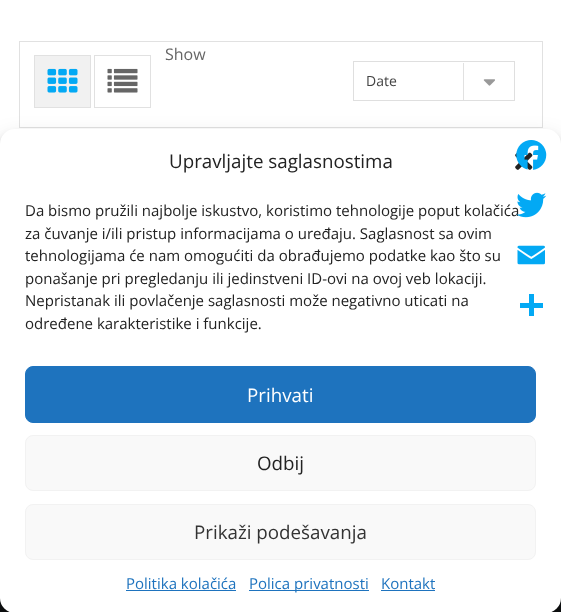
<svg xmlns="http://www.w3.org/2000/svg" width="561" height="612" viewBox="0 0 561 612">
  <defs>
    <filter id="blur1" x="-50%" y="-200%" width="200%" height="500%"><feGaussianBlur stdDeviation="4"/></filter>
    <filter id="blur2" x="-50%" y="-200%" width="200%" height="500%"><feGaussianBlur stdDeviation="12.5"/></filter>
  </defs>
  <rect width="100%" height="100%" fill="#ffffff"/>
  <rect x="19.5" y="41.5" width="523" height="86" fill="none" stroke="#e1e1e1"/>
  <rect x="34.5" y="55.5" width="56" height="52" fill="#f1f1f1" stroke="#e1e1e1"/>
  <image x="47" y="68" width="31" height="25" href="img1.png"/>
  <rect x="94.5" y="55.5" width="56" height="52" fill="none" stroke="#e1e1e1"/>
  <image x="107" y="68" width="31" height="25" href="img2.png"/>
  <text x="165" y="60" font-family="Open Sans" font-size="16" fill="#666666">Show</text>
  <rect x="353.5" y="61.5" width="161" height="39" fill="none" stroke="#dfdfdf"/>
  <text x="366" y="86" font-family="Open Sans" font-size="14" fill="#444444">Date</text>
  <rect x="463" y="63" width="1" height="37" fill="#e1e1e1"/>
  <image x="483" y="79" width="12" height="7" href="img3.png"/>
  <rect x="0" y="598" width="561" height="14" fill="#0f1112"/>
  <rect x="0" y="136" width="561" height="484" rx="15" fill="#000000" fill-opacity="0.23" filter="url(#blur1)"/>
  <rect x="0" y="141" width="561" height="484" rx="15" fill="#000000" fill-opacity="0.19" filter="url(#blur2)"/>
  <rect x="0" y="129" width="561" height="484" rx="15" fill="#ffffff"/>
  <image x="515" y="152" width="18" height="18" href="img7.png"/>
  <image x="516" y="140" width="31" height="30" href="img4.png"/>
  <text x="25" y="216" font-family="Open Sans" font-size="15" fill="#222222">Da bismo pružili najbolje iskustvo, koristimo tehnologije poput kolačića</text>
  <image x="516" y="192" width="31" height="26" href="img5.png"/>
  <image x="517" y="245" width="28" height="20" href="img6.png"/>
  <rect x="529" y="294" width="5" height="22" fill="#03a9f4"/>
  <rect x="520" y="303" width="23" height="5" fill="#03a9f4"/>
  <text x="169" y="168" font-family="Open Sans" font-size="18.75" fill="#222222">Upravljajte saglasnostima</text>
  <text x="25" y="239" font-family="Open Sans" font-size="15" fill="#222222">za čuvanje i/ili pristup informacijama o uređaju. Saglasnost sa ovim</text>
  <text x="25" y="261" font-family="Open Sans" font-size="15" fill="#222222">tehnologijama će nam omogućiti da obrađujemo podatke kao što su</text>
  <text x="25" y="284" font-family="Open Sans" font-size="15" fill="#222222">ponašanje pri pregledanju ili jedinstveni ID-ovi na ovoj veb lokaciji.</text>
  <text x="25" y="306" font-family="Open Sans" font-size="15" fill="#222222">Nepristanak ili povlačenje saglasnosti može negativno uticati na</text>
  <text x="25" y="329" font-family="Open Sans" font-size="15" fill="#222222">određene karakteristike i funkcije.</text>
  <rect x="25.5" y="366.5" width="510" height="56" rx="7.5" fill="#1e73be" stroke="#1e73be"/>
  <text x="247" y="402" font-family="Open Sans" font-size="18.75" fill="#ffffff">Prihvati</text>
  <rect x="25.5" y="435.5" width="510" height="55" rx="7.5" fill="#f9f9f9" stroke="#f2f2f2"/>
  <text x="257" y="470" font-family="Open Sans" font-size="18.75" fill="#222222">Odbij</text>
  <rect x="25.5" y="504.5" width="510" height="55" rx="7.5" fill="#f9f9f9" stroke="#f2f2f2"/>
  <text x="194" y="539" font-family="Open Sans" font-size="18.75" fill="#333333">Prikaži podešavanja</text>
  <text x="126" y="589" font-family="Open Sans" font-size="15" fill="#1e73be">Politika kolačića</text>
  <rect x="126" y="590" width="110" height="1" fill="#1e73be"/>
  <rect x="249" y="590" width="120" height="1" fill="#1e73be"/>
  <text x="249" y="589" font-family="Open Sans" font-size="15" fill="#1e73be">Polica privatnosti</text>
  <text x="381" y="589" font-family="Open Sans" font-size="15" fill="#1e73be">Kontakt</text>
  <rect x="381" y="590" width="54" height="1" fill="#1e73be"/>
</svg>
